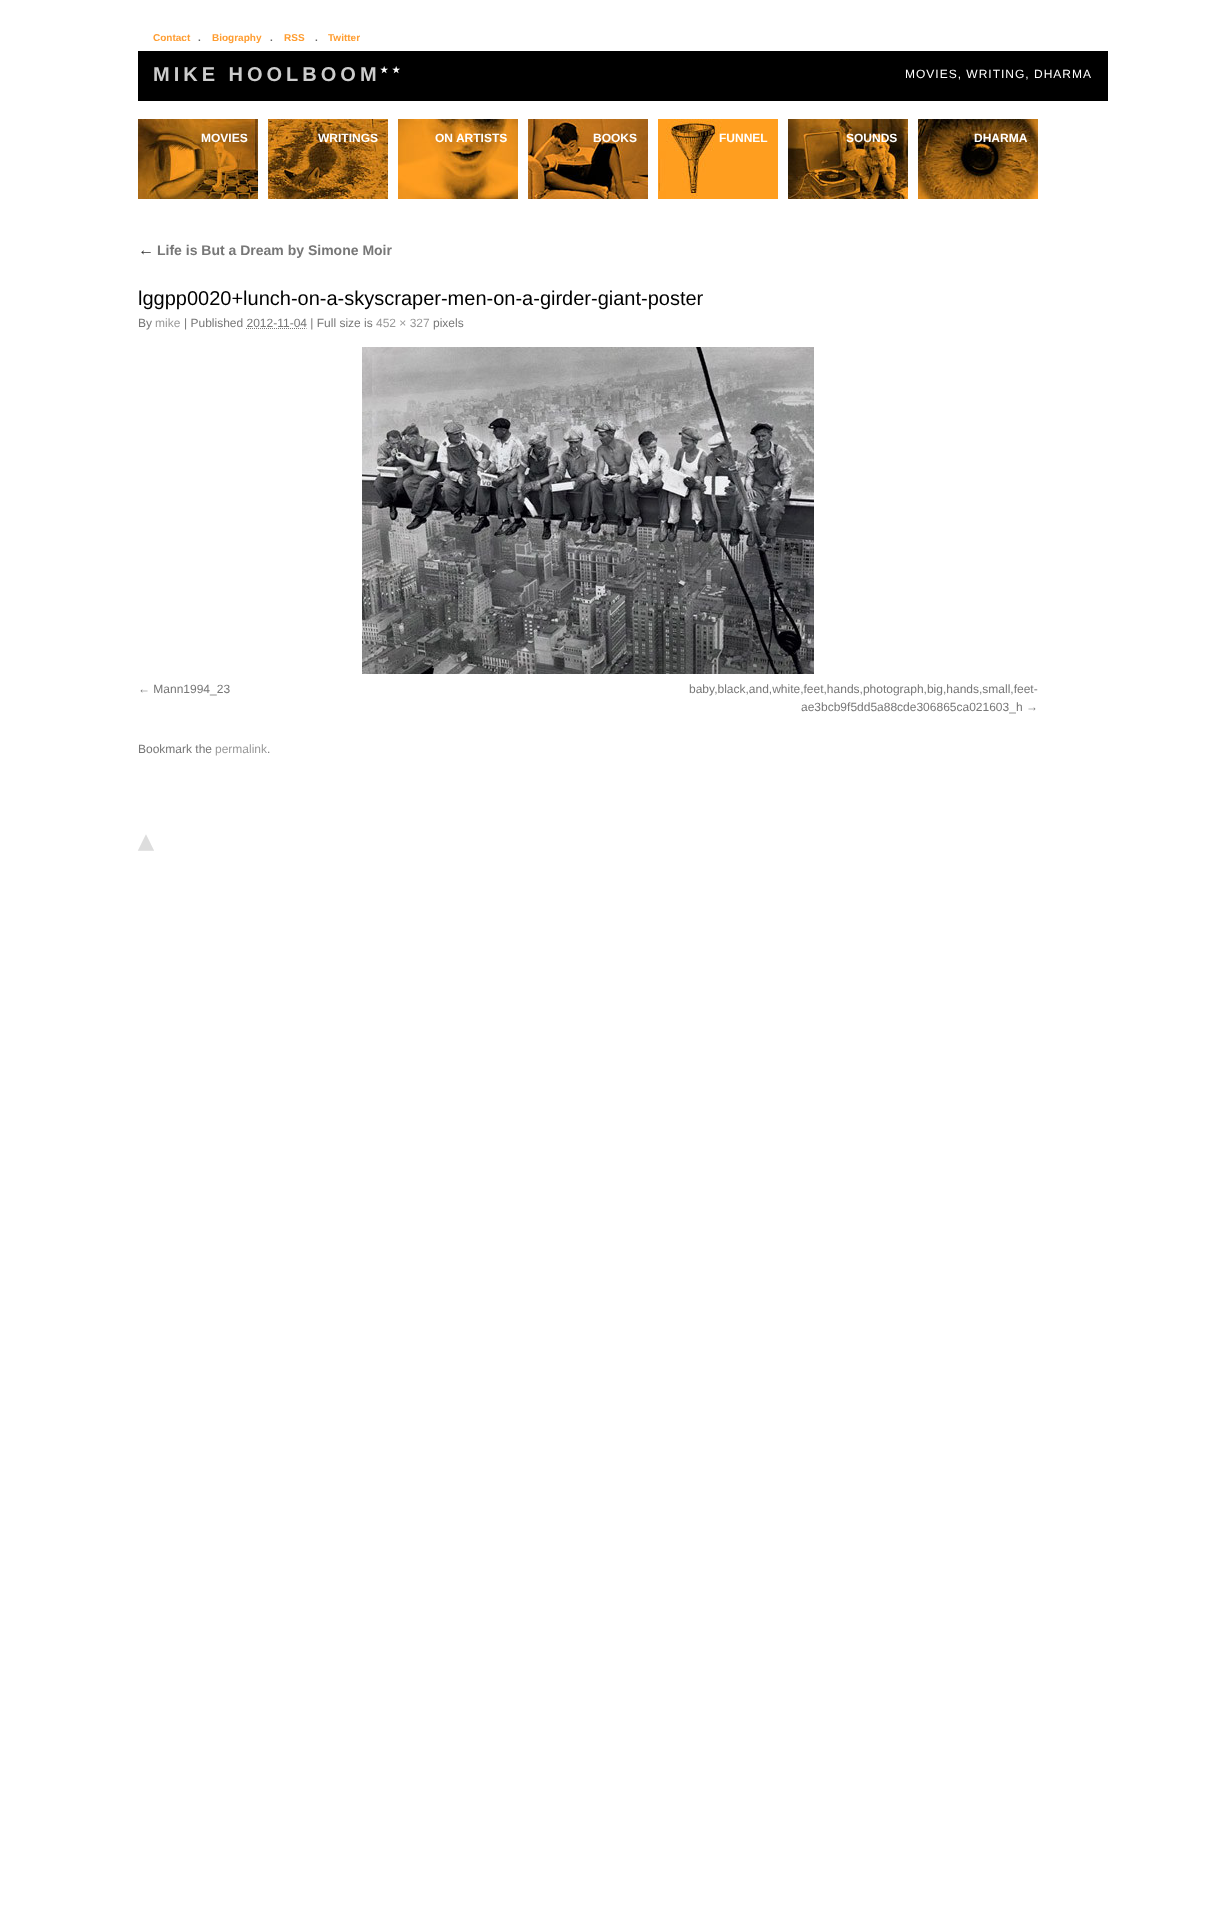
<svg xmlns="http://www.w3.org/2000/svg" width="1215" height="1921" viewBox="0 0 1215 1921">
  <rect width="100%" height="100%" fill="#ffffff"/>
  <text x="153" y="41" font-family="Liberation Sans" font-size="10" font-weight="bold" fill="#ff9d31">Contact</text>
  <text x="198" y="41" font-family="Liberation Sans" font-size="10" font-weight="bold" fill="#666666">.</text>
  <text x="212" y="41" font-family="Liberation Sans" font-size="10" font-weight="bold" fill="#ff9d31">Biography</text>
  <text x="270" y="41" font-family="Liberation Sans" font-size="10" font-weight="bold" fill="#666666">.</text>
  <text x="284" y="41" font-family="Liberation Sans" font-size="10" font-weight="bold" fill="#ff9d31">RSS</text>
  <text x="315" y="41" font-family="Liberation Sans" font-size="10" font-weight="bold" fill="#666666">.</text>
  <text x="328" y="41" font-family="Liberation Sans" font-size="10" font-weight="bold" fill="#ff9d31">Twitter</text>
  <rect x="138" y="51" width="970" height="50" fill="#000000"/>
  <text x="153" y="81" font-family="Liberation Sans" font-size="20" font-weight="bold" letter-spacing="4" fill="#cccccc">MIKE HOOLBOOM</text>
  <text x="380" y="73" font-family="DejaVu Sans" font-size="9" font-weight="bold" letter-spacing="4" fill="#ffffff">★★</text>
  <text x="905" y="78" font-family="Liberation Sans" font-size="12" letter-spacing="1" fill="#ffffff">MOVIES, WRITING, DHARMA</text>
  <image x="138" y="119" width="120" height="80" href="img1.png"/>
  <text x="201" y="142" font-family="Liberation Sans" font-size="12" font-weight="bold" fill="#ffffff">MOVIES</text>
  <image x="268" y="119" width="120" height="80" href="img2.png"/>
  <text x="318" y="142" font-family="Liberation Sans" font-size="12" font-weight="bold" fill="#ffffff">WRITINGS</text>
  <image x="398" y="119" width="120" height="80" href="img3.png"/>
  <text x="435" y="142" font-family="Liberation Sans" font-size="12" font-weight="bold" fill="#ffffff">ON ARTISTS</text>
  <image x="528" y="119" width="120" height="80" href="img4.png"/>
  <text x="593" y="142" font-family="Liberation Sans" font-size="12" font-weight="bold" fill="#ffffff">BOOKS</text>
  <image x="658" y="119" width="120" height="80" href="img5.png"/>
  <text x="719" y="142" font-family="Liberation Sans" font-size="12" font-weight="bold" fill="#ffffff">FUNNEL</text>
  <image x="788" y="119" width="120" height="80" href="img6.png"/>
  <text x="846" y="142" font-family="Liberation Sans" font-size="12" font-weight="bold" fill="#ffffff">SOUNDS</text>
  <image x="918" y="119" width="120" height="80" href="img7.png"/>
  <text x="974" y="142" font-family="Liberation Sans" font-size="12" font-weight="bold" fill="#ffffff">DHARMA</text>
  <text x="138" y="255" font-family="Liberation Serif" font-size="16" font-style="italic" fill="#333333">←</text>
  <text x="157" y="255" font-family="Liberation Sans" font-size="14" font-weight="bold" fill="#777777">Life is But a Dream by Simone Moir</text>
  <text x="138" y="305" font-family="Liberation Sans" font-size="20" fill="#000000">lggpp0020+lunch-on-a-skyscraper-men-on-a-girder-giant-poster</text>
  <text x="138" y="327" font-family="Liberation Sans" font-size="12" fill="#777777">By</text>
  <text x="155" y="327" font-family="Liberation Sans" font-size="12" fill="#999999">mike</text>
  <text x="184" y="327" font-family="Liberation Sans" font-size="12" fill="#777777">| Published 2012-11-04 | Full size is</text>
  <text x="376" y="327" font-family="Liberation Sans" font-size="12" fill="#999999">452 × 327</text>
  <text x="433" y="327" font-family="Liberation Sans" font-size="12" fill="#777777">pixels</text>
  <path d="M246 328.5H306.5" fill="none" stroke="#777777" stroke-dasharray="1 1"/>
  <image x="362" y="347" width="452" height="327" href="img8.png"/>
  <text x="138" y="693" font-family="Liberation Sans" font-size="12" fill="#777777">← Mann1994_23</text>
  <text x="689" y="693" font-family="Liberation Sans" font-size="12" fill="#777777">baby,black,and,white,feet,hands,photograph,big,hands,small,feet-</text>
  <text x="801" y="711" font-family="Liberation Sans" font-size="12" fill="#777777">ae3bcb9f5dd5a88cde306865ca021603_h →</text>
  <text x="138" y="753" font-family="Liberation Sans" font-size="12" fill="#777777">Bookmark the</text>
  <text x="215" y="753" font-family="Liberation Sans" font-size="12" fill="#999999">permalink</text>
  <text x="267" y="753" font-family="Liberation Sans" font-size="12" fill="#777777">.</text>
  <text x="138" y="851" font-family="DejaVu Sans" font-size="30" font-weight="bold" fill="#dddddd">▴</text>
</svg>
